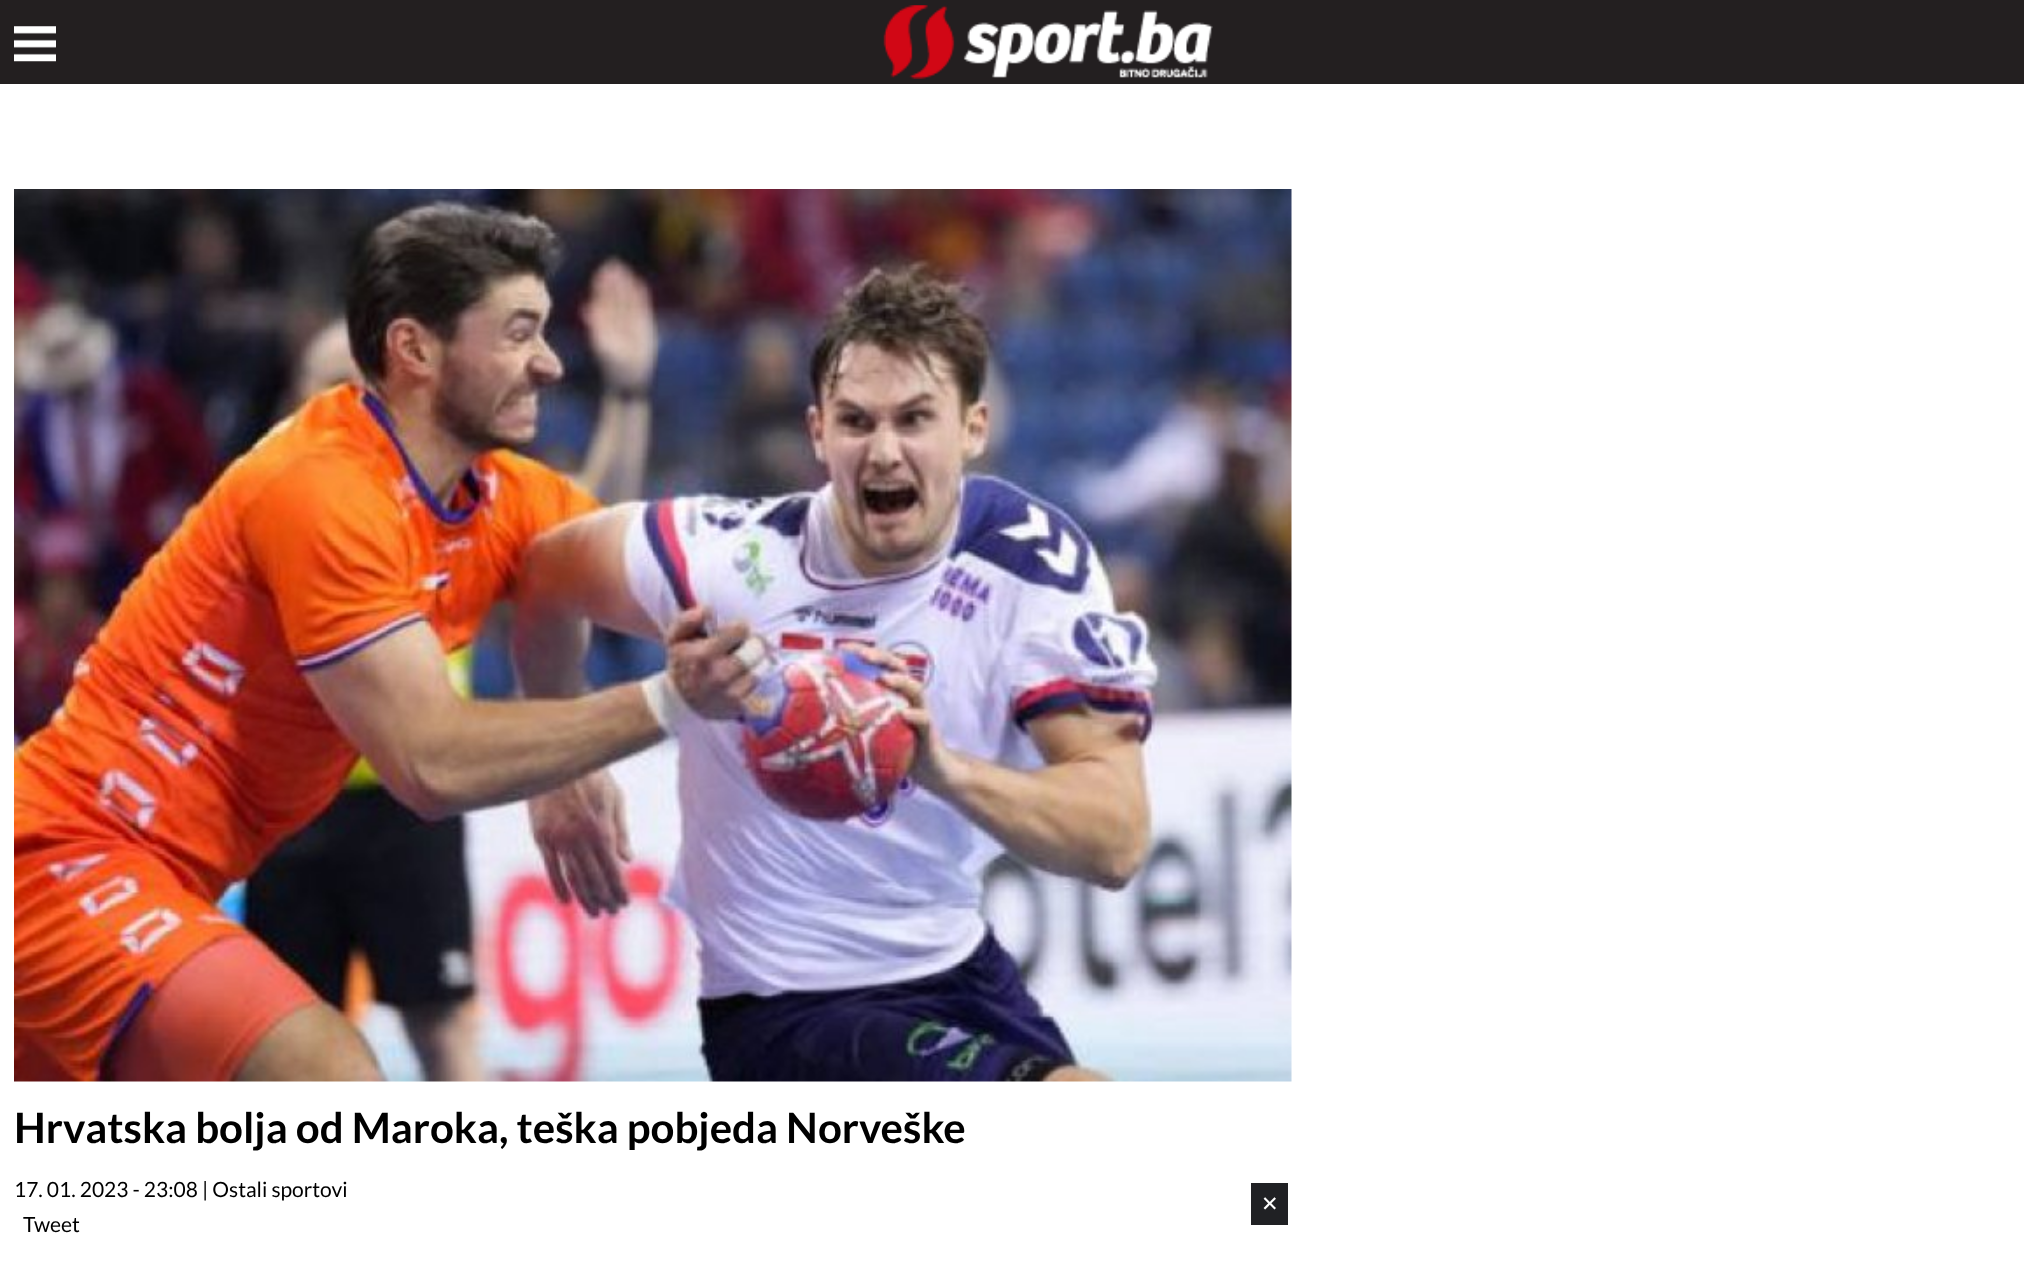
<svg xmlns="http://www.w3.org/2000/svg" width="2024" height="1265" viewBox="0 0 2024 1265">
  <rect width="100%" height="100%" fill="#ffffff"/>
  <rect x="0" y="0" width="2024" height="84" fill="#231f20"/>
  <image x="14" y="26" width="42" height="36" href="img1.png"/>
  <image x="883" y="5" width="330" height="74" href="img2.png"/>
  <image x="14" y="189" width="1278" height="893" href="img3.png"/>
  <text x="14" y="1143" font-family="Lato" font-size="42" font-weight="bold" fill="#000000">Hrvatska bolja od Maroka, teška pobjeda Norveške</text>
  <text x="14" y="1197" font-family="Lato" font-size="21" fill="#000000">17. 01. 2023 - 23:08 | Ostali sportovi</text>
  <text x="23" y="1232" font-family="Lato" font-size="21" fill="#000000">Tweet</text>
  <rect x="1251" y="1183" width="37" height="42" fill="#202124"/>
  <text x="1261" y="1211" font-family="DejaVu Sans" font-size="21" fill="#ffffff">✕</text>
</svg>
